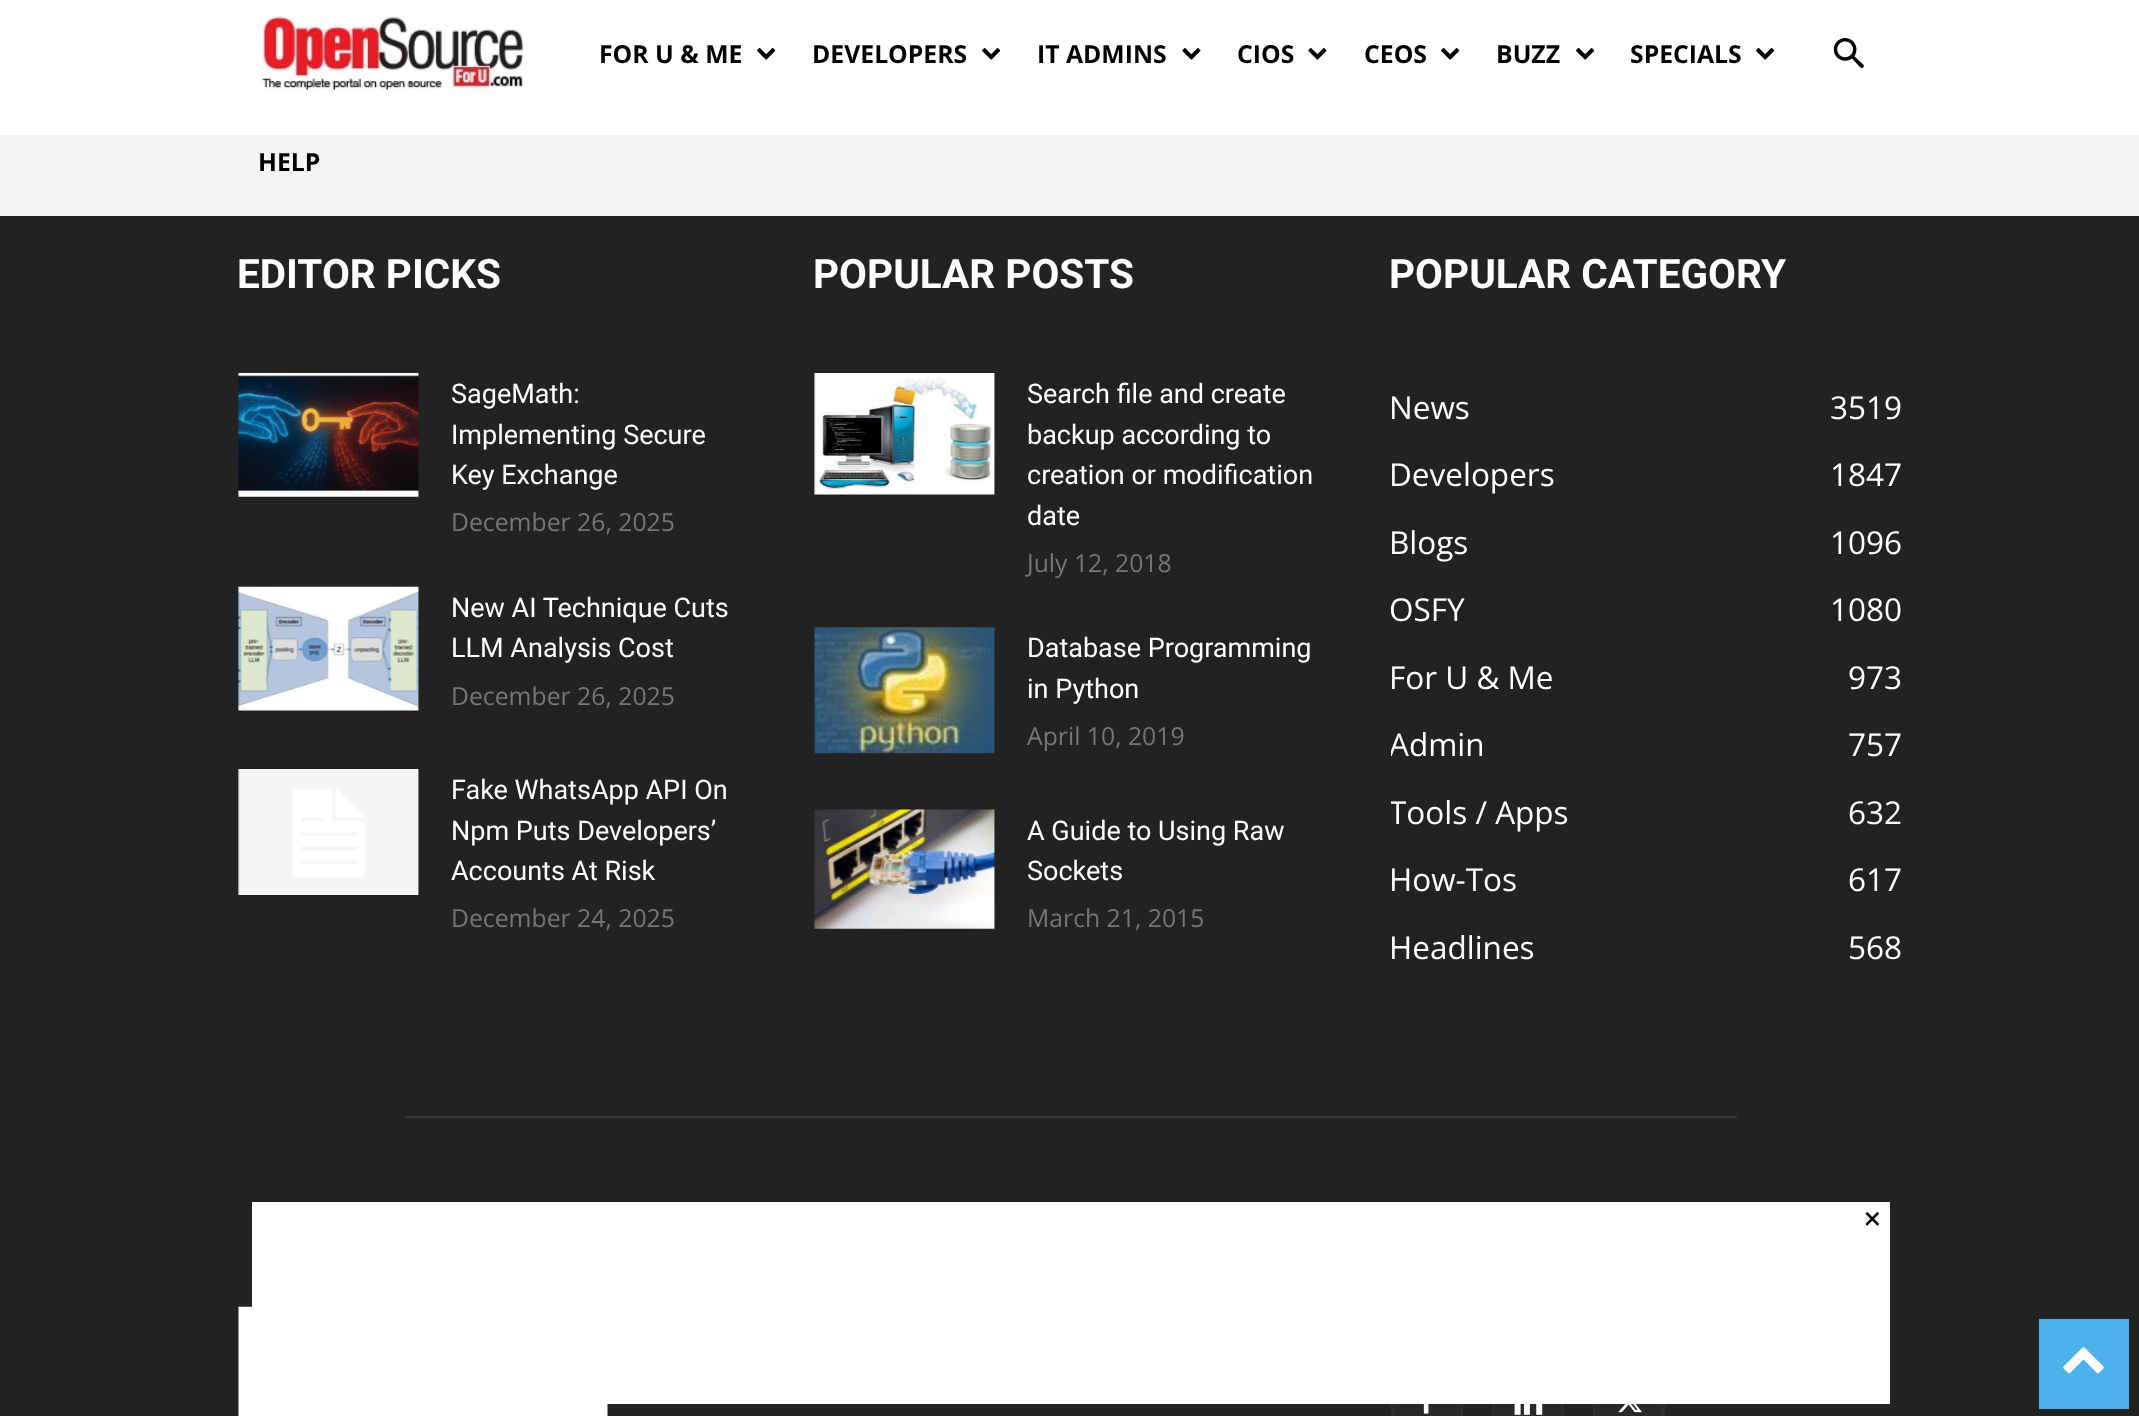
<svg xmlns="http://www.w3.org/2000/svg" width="2139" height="1416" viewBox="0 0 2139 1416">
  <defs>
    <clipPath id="clip1"><rect x="1391" y="236" width="513" height="745"/></clipPath>
  </defs>
  <rect width="100%" height="100%" fill="#ffffff"/>
  <image x="257" y="15" width="267" height="76" href="img1.png"/>
  <text x="599" y="63" font-family="Open Sans" font-size="24.75" font-weight="bold" fill="#000000">FOR U &amp; ME</text>
  <image x="757" y="48" width="19" height="12" href="img2.png"/>
  <text x="812" y="63" font-family="Open Sans" font-size="24.75" font-weight="bold" fill="#000000">DEVELOPERS</text>
  <image x="982" y="48" width="19" height="12" href="img2.png"/>
  <text x="1037" y="63" font-family="Open Sans" font-size="24.75" font-weight="bold" fill="#000000">IT ADMINS</text>
  <image x="1182" y="48" width="19" height="12" href="img3.png"/>
  <text x="1237" y="63" font-family="Open Sans" font-size="24.75" font-weight="bold" fill="#000000">CIOS</text>
  <image x="1308" y="48" width="19" height="12" href="img3.png"/>
  <text x="1364" y="63" font-family="Open Sans" font-size="24.75" font-weight="bold" fill="#000000">CEOS</text>
  <image x="1441" y="48" width="19" height="12" href="img2.png"/>
  <text x="1496" y="63" font-family="Open Sans" font-size="24.75" font-weight="bold" fill="#000000">BUZZ</text>
  <image x="1576" y="48" width="19" height="12" href="img2.png"/>
  <text x="1630" y="63" font-family="Open Sans" font-size="24.75" font-weight="bold" fill="#000000">SPECIALS</text>
  <image x="1756" y="48" width="19" height="12" href="img2.png"/>
  <rect x="0" y="135" width="2139" height="81" fill="#f4f4f4"/>
  <text x="258" y="171" font-family="Open Sans" font-size="24.75" font-weight="bold" fill="#000000">HELP</text>
  <image x="1833" y="38" width="31" height="30" href="img4.png"/>
  <rect x="0" y="216" width="2139" height="1200" fill="#222222"/>
  <text x="237" y="288" font-family="Roboto" font-size="40.5" font-weight="bold" fill="#ffffff">EDITOR PICKS</text>
  <image x="238" y="373" width="181" height="124" href="img5.png"/>
  <text x="451" y="403" font-family="Roboto" font-size="27" fill="#ffffff">SageMath:</text>
  <text x="451" y="444" font-family="Roboto" font-size="27" fill="#ffffff">Implementing Secure</text>
  <text x="451" y="484" font-family="Roboto" font-size="27" fill="#ffffff">Key Exchange</text>
  <text x="451" y="531" font-family="Open Sans" font-size="24.75" fill="#767676">December 26, 2025</text>
  <image x="238" y="586" width="181" height="125" href="img6.png"/>
  <text x="451" y="617" font-family="Roboto" font-size="27" fill="#ffffff">New AI Technique Cuts</text>
  <text x="451" y="657" font-family="Roboto" font-size="27" fill="#ffffff">LLM Analysis Cost</text>
  <text x="451" y="705" font-family="Open Sans" font-size="24.75" fill="#767676">December 26, 2025</text>
  <image x="238" y="769" width="181" height="126" href="img7.png"/>
  <text x="451" y="799" font-family="Roboto" font-size="27" fill="#ffffff">Fake WhatsApp API On</text>
  <text x="451" y="840" font-family="Roboto" font-size="27" fill="#ffffff">Npm Puts Developers’</text>
  <text x="451" y="880" font-family="Roboto" font-size="27" fill="#ffffff">Accounts At Risk</text>
  <text x="451" y="927" font-family="Open Sans" font-size="24.75" fill="#767676">December 24, 2025</text>
  <text x="813" y="288" font-family="Roboto" font-size="40.5" font-weight="bold" fill="#ffffff">POPULAR POSTS</text>
  <image x="814" y="373" width="181" height="122" href="img8.png"/>
  <text x="1027" y="403" font-family="Roboto" font-size="27" fill="#ffffff">Search file and create</text>
  <text x="1027" y="444" font-family="Roboto" font-size="27" fill="#ffffff">backup according to</text>
  <text x="1027" y="484" font-family="Roboto" font-size="27" fill="#ffffff">creation or modification</text>
  <text x="1027" y="525" font-family="Roboto" font-size="27" fill="#ffffff">date</text>
  <text x="1027" y="572" font-family="Open Sans" font-size="24.75" fill="#767676">July 12, 2018</text>
  <image x="814" y="627" width="181" height="127" href="img9.png"/>
  <text x="1027" y="657" font-family="Roboto" font-size="27" fill="#ffffff">Database Programming</text>
  <text x="1027" y="698" font-family="Roboto" font-size="27" fill="#ffffff">in Python</text>
  <text x="1027" y="745" font-family="Open Sans" font-size="24.75" fill="#767676">April 10, 2019</text>
  <image x="814" y="809" width="181" height="120" href="img10.png"/>
  <text x="1027" y="840" font-family="Roboto" font-size="27" fill="#ffffff">A Guide to Using Raw</text>
  <text x="1027" y="880" font-family="Roboto" font-size="27" fill="#ffffff">Sockets</text>
  <text x="1027" y="927" font-family="Open Sans" font-size="24.75" fill="#767676">March 21, 2015</text>
  <text x="1389" y="288" font-family="Roboto" font-size="40.5" font-weight="bold" fill="#ffffff">POPULAR CATEGORY</text>
  <text x="1389" y="419" font-family="Open Sans" font-size="31.5" fill="#ffffff">News</text>
  <text x="1830" y="419" font-family="Open Sans" font-size="31.5" fill="#ffffff">3519</text>
  <text x="1389" y="486" font-family="Open Sans" font-size="31.5" fill="#ffffff">Developers</text>
  <text x="1830" y="486" font-family="Open Sans" font-size="31.5" fill="#ffffff">1847</text>
  <text x="1389" y="554" font-family="Open Sans" font-size="31.5" fill="#ffffff">Blogs</text>
  <text x="1830" y="554" font-family="Open Sans" font-size="31.5" fill="#ffffff">1096</text>
  <text x="1389" y="621" font-family="Open Sans" font-size="31.5" fill="#ffffff">OSFY</text>
  <text x="1830" y="621" font-family="Open Sans" font-size="31.5" fill="#ffffff">1080</text>
  <text x="1389" y="689" font-family="Open Sans" font-size="31.5" fill="#ffffff">For U &amp; Me</text>
  <text x="1848" y="689" font-family="Open Sans" font-size="31.5" fill="#ffffff">973</text>
  <g clip-path="url(#clip1)">
    <text x="1389" y="756" font-family="Open Sans" font-size="31.5" fill="#ffffff">Admin</text>
  </g>
  <text x="1848" y="756" font-family="Open Sans" font-size="31.5" fill="#ffffff">757</text>
  <g clip-path="url(#clip1)">
    <text x="1389" y="824" font-family="Open Sans" font-size="31.5" fill="#ffffff">Tools / Apps</text>
  </g>
  <text x="1848" y="824" font-family="Open Sans" font-size="31.5" fill="#ffffff">632</text>
  <text x="1389" y="891" font-family="Open Sans" font-size="31.5" fill="#ffffff">How-Tos</text>
  <text x="1848" y="891" font-family="Open Sans" font-size="31.5" fill="#ffffff">617</text>
  <text x="1389" y="959" font-family="Open Sans" font-size="31.5" fill="#ffffff">Headlines</text>
  <text x="1848" y="959" font-family="Open Sans" font-size="31.5" fill="#ffffff">568</text>
  <rect x="405" y="1116" width="1332" height="2" fill="#383838"/>
  <image x="238" y="1306" width="370" height="110" href="img11.png"/>
  <rect x="1393" y="1404" width="68" height="12" fill="#292929"/>
  <image x="1423" y="1404" width="6" height="10" href="img12.png"/>
  <rect x="1392" y="1369" width="70" height="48" fill="none" stroke="#2f2f2f" stroke-width="2"/>
  <rect x="1494" y="1404" width="68" height="12" fill="#292929"/>
  <image x="1514" y="1404" width="29" height="11" href="img13.png"/>
  <rect x="1493" y="1369" width="70" height="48" fill="none" stroke="#2f2f2f" stroke-width="2"/>
  <rect x="1595" y="1404" width="68" height="12" fill="#292929"/>
  <image x="1618" y="1404" width="24" height="9" href="img14.png"/>
  <rect x="1594" y="1369" width="70" height="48" fill="none" stroke="#2f2f2f" stroke-width="2"/>
  <rect x="252" y="1202" width="1638" height="202" fill="#ffffff"/>
  <text x="1864" y="1229" font-family="Roboto" font-size="31.5" fill="#000000">×</text>
  <rect x="2039" y="1319" width="90" height="90" fill="#4db2ec"/>
  <image x="2063" y="1347" width="41" height="27" href="img15.png"/>
</svg>
